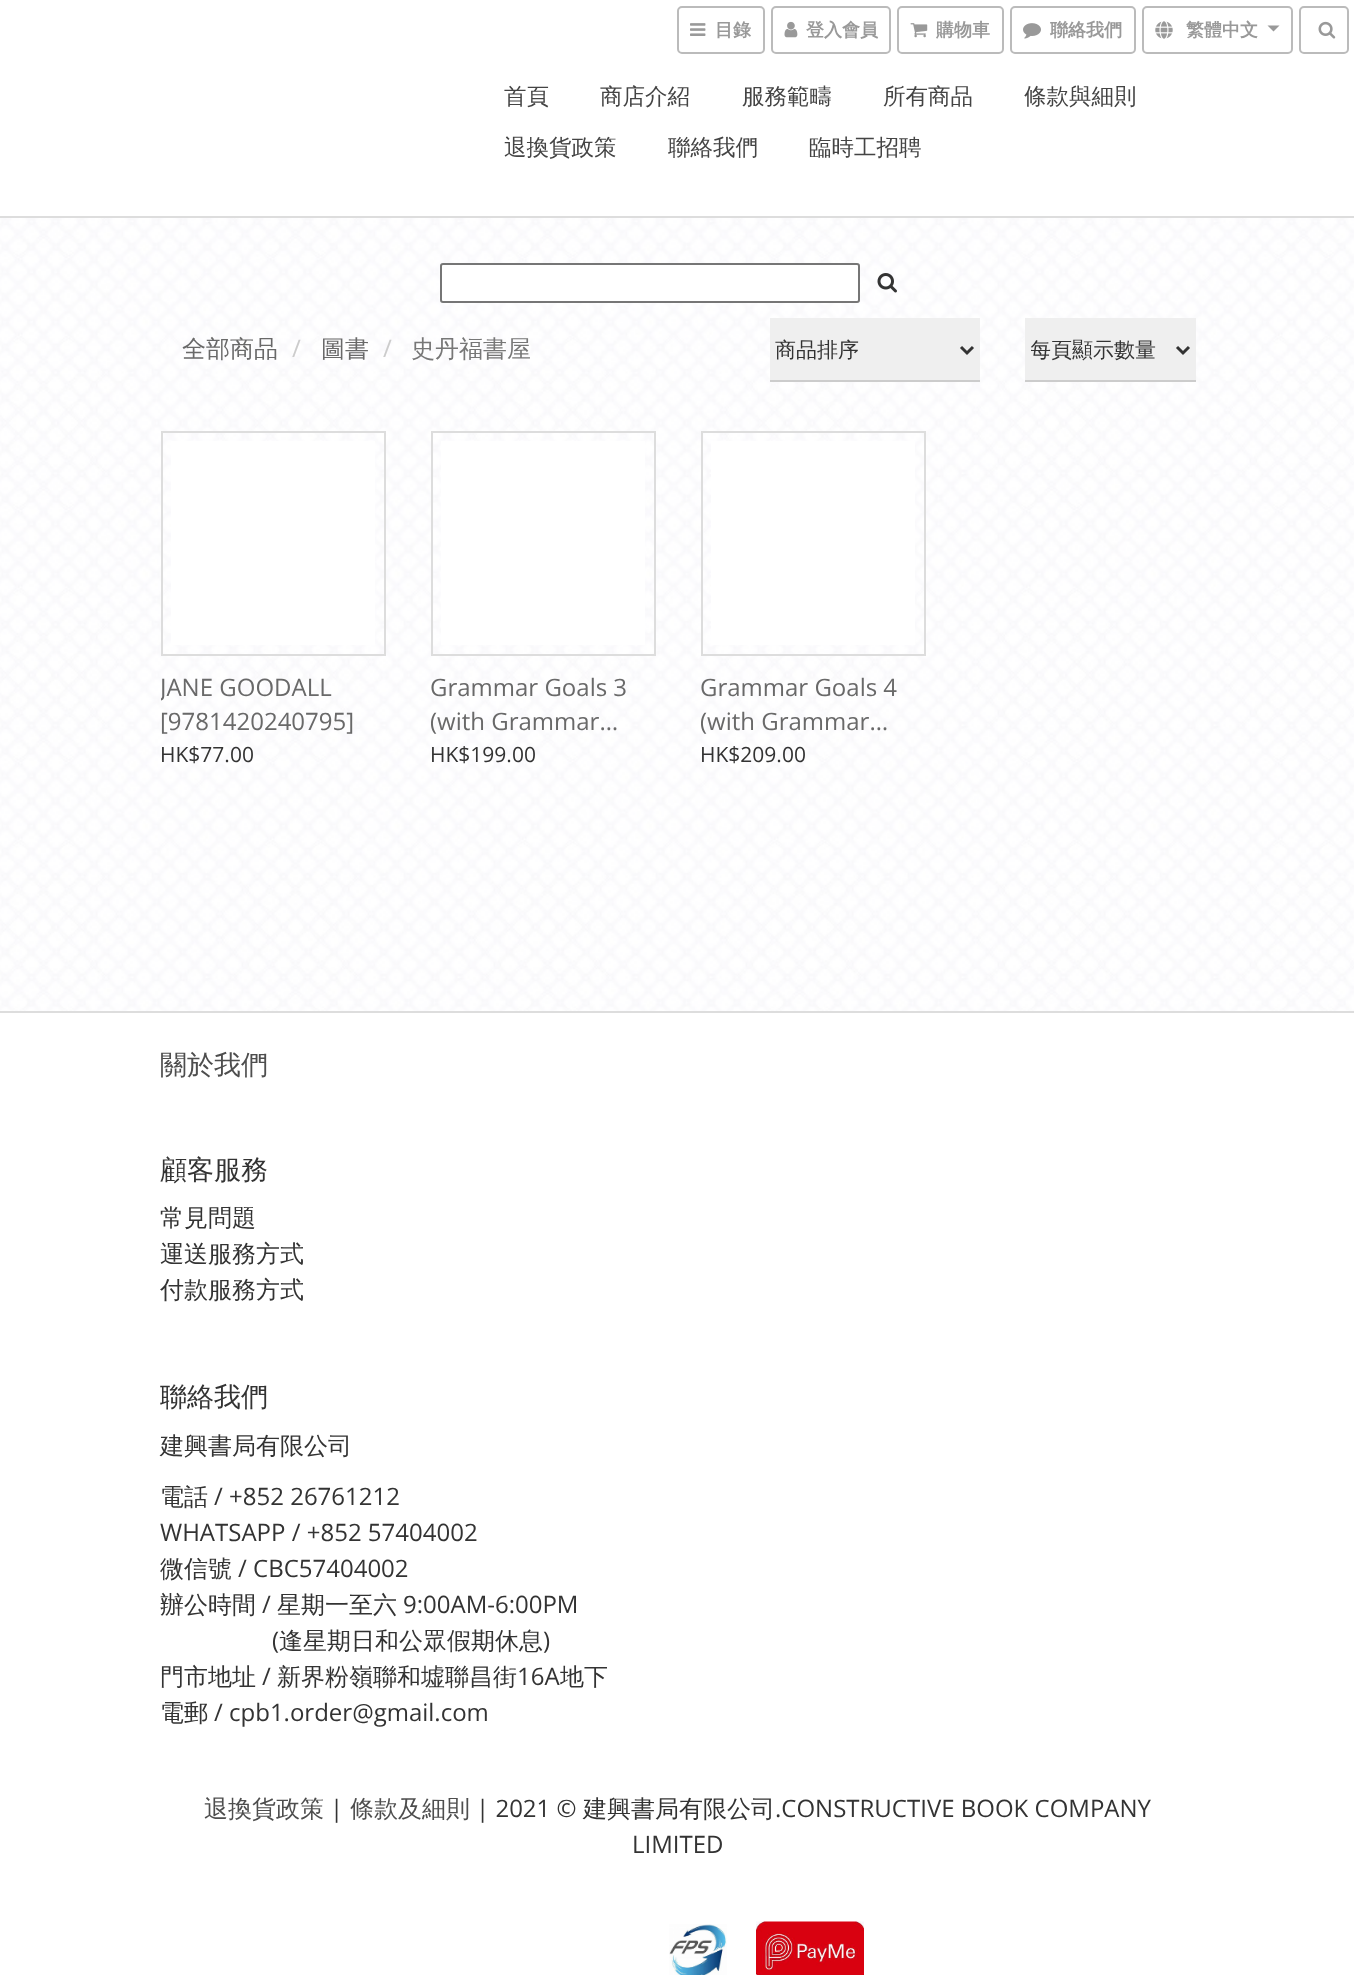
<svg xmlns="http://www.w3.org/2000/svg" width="1354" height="1975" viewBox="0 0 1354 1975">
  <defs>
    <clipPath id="clip1"><rect x="1031" y="333" width="141" height="32"/></clipPath>
    <clipPath id="clip2"><rect x="161" y="671" width="225" height="67"/></clipPath>
    <clipPath id="clip3"><rect x="431" y="671" width="225" height="67"/></clipPath>
    <clipPath id="clip4"><rect x="701" y="671" width="225" height="67"/></clipPath>
  </defs>
  <rect width="100%" height="100%" fill="#ffffff"/>
  <image x="0" y="218" width="1354" height="793" href="img1.png"/>
  <rect x="678" y="7" width="86" height="46" rx="4" fill="none" stroke="#bbbbbb" stroke-width="2"/>
  <image x="690" y="23" width="16" height="13" href="img2.png"/>
  <text x="715" y="36" font-family="WenQuanYi Zen Hei" font-size="18" font-weight="bold" fill="#999999">目錄</text>
  <rect x="772" y="7" width="118" height="46" rx="4" fill="none" stroke="#bbbbbb" stroke-width="2"/>
  <image x="784" y="21" width="14" height="17" href="img3.png"/>
  <text x="806" y="36" font-family="WenQuanYi Zen Hei" font-size="18" font-weight="bold" fill="#999999">登入會員</text>
  <rect x="898" y="7" width="105" height="46" rx="4" fill="none" stroke="#bbbbbb" stroke-width="2"/>
  <image x="910" y="23" width="18" height="15" href="img4.png"/>
  <text x="936" y="36" font-family="WenQuanYi Zen Hei" font-size="18" font-weight="bold" fill="#999999">購物車</text>
  <rect x="1011" y="7" width="124" height="46" rx="4" fill="none" stroke="#bbbbbb" stroke-width="2"/>
  <image x="1023" y="23" width="18" height="16" href="img5.png"/>
  <text x="1050" y="36" font-family="WenQuanYi Zen Hei" font-size="18" font-weight="bold" fill="#999999">聯絡我們</text>
  <rect x="1143" y="7" width="149" height="46" rx="4" fill="none" stroke="#bbbbbb" stroke-width="2"/>
  <image x="1155" y="21" width="18" height="18" href="img6.png"/>
  <text x="1186" y="36" font-family="WenQuanYi Zen Hei" font-size="18" font-weight="bold" fill="#999999">繁體中文</text>
  <path d="M1267.5 25.5H1279.5L1273.5 31.5Z" fill="#999999"/>
  <rect x="1300" y="7" width="48" height="46" rx="4" fill="none" stroke="#bbbbbb" stroke-width="2"/>
  <image x="1318" y="21" width="18" height="18" href="img7.png"/>
  <rect x="0" y="216" width="1354" height="2" fill="#dddddd"/>
  <text x="504" y="104" font-family="WenQuanYi Zen Hei" font-size="22.5" font-weight="500" fill="#444444">首頁</text>
  <text x="600" y="104" font-family="WenQuanYi Zen Hei" font-size="22.5" font-weight="500" fill="#444444">商店介紹</text>
  <text x="742" y="104" font-family="WenQuanYi Zen Hei" font-size="22.5" font-weight="500" fill="#444444">服務範疇</text>
  <text x="883" y="104" font-family="WenQuanYi Zen Hei" font-size="22.5" font-weight="500" fill="#444444">所有商品</text>
  <text x="1024" y="104" font-family="WenQuanYi Zen Hei" font-size="22.5" font-weight="500" fill="#444444">條款與細則</text>
  <text x="504" y="155" font-family="WenQuanYi Zen Hei" font-size="22.5" font-weight="500" fill="#444444">退換貨政策</text>
  <text x="668" y="155" font-family="WenQuanYi Zen Hei" font-size="22.5" font-weight="500" fill="#444444">聯絡我們</text>
  <text x="809" y="155" font-family="WenQuanYi Zen Hei" font-size="22.5" font-weight="500" fill="#444444">臨時工招聘</text>
  <rect x="441" y="264" width="418" height="38" rx="2" fill="#ffffff" stroke="#767676" stroke-width="2"/>
  <image x="877" y="273" width="20" height="20" href="img8.png"/>
  <text x="182" y="357" font-family="WenQuanYi Zen Hei" font-size="24" font-weight="500" fill="#696969">全部商品</text>
  <text x="292" y="357" font-family="Open Sans" font-size="24" fill="#cccccc">/</text>
  <text x="321" y="357" font-family="WenQuanYi Zen Hei" font-size="24" font-weight="500" fill="#696969">圖書</text>
  <text x="383" y="357" font-family="Open Sans" font-size="24" fill="#cccccc">/</text>
  <text x="411" y="357" font-family="WenQuanYi Zen Hei" font-size="24" font-weight="500" fill="#777777">史丹福書屋</text>
  <rect x="770" y="318" width="210" height="62" fill="#efefef"/>
  <rect x="770" y="380" width="210" height="2" fill="#cccccc"/>
  <path d="M961 347L967 353L973 347" fill="none" stroke="#333333" stroke-width="3"/>
  <text x="775" y="357" font-family="WenQuanYi Zen Hei" font-size="21" font-weight="500" fill="#333333">商品排序</text>
  <rect x="1025" y="318" width="171" height="62" fill="#efefef"/>
  <rect x="1025" y="380" width="171" height="2" fill="#cccccc"/>
  <path d="M1177 347L1183 353L1189 347" fill="none" stroke="#333333" stroke-width="3"/>
  <g clip-path="url(#clip1)">
    <text x="1030" y="357" font-family="WenQuanYi Zen Hei" font-size="21" font-weight="500" fill="#333333">每頁顯示數量</text>
  </g>
  <rect x="162" y="432" width="223" height="223" fill="none" stroke="#dddddd" stroke-width="2"/>
  <rect x="171" y="441" width="204" height="204" fill="#ffffff"/>
  <g clip-path="url(#clip2)">
    <text x="160" y="696" font-family="Open Sans" font-size="24" fill="#696969">JANE GOODALL</text>
  </g>
  <text x="160" y="730" font-family="Open Sans" font-size="24" fill="#696969">[9781420240795]</text>
  <text x="160" y="762" font-family="Open Sans" font-size="21" fill="#333333">HK$77.00</text>
  <rect x="432" y="432" width="223" height="223" fill="none" stroke="#dddddd" stroke-width="2"/>
  <rect x="441" y="441" width="204" height="204" fill="#ffffff"/>
  <text x="430" y="696" font-family="Open Sans" font-size="24" fill="#696969">Grammar Goals 3</text>
  <g clip-path="url(#clip3)">
    <text x="430" y="730" font-family="Open Sans" font-size="24" fill="#696969">(with Grammar…</text>
  </g>
  <text x="430" y="762" font-family="Open Sans" font-size="21" fill="#333333">HK$199.00</text>
  <rect x="702" y="432" width="223" height="223" fill="none" stroke="#dddddd" stroke-width="2"/>
  <rect x="711" y="441" width="204" height="204" fill="#ffffff"/>
  <text x="700" y="696" font-family="Open Sans" font-size="24" fill="#696969">Grammar Goals 4</text>
  <g clip-path="url(#clip4)">
    <text x="700" y="730" font-family="Open Sans" font-size="24" fill="#696969">(with Grammar…</text>
  </g>
  <text x="700" y="762" font-family="Open Sans" font-size="21" fill="#333333">HK$209.00</text>
  <rect x="0" y="1011" width="1354" height="2" fill="#dddddd"/>
  <text x="160" y="1074" font-family="WenQuanYi Zen Hei" font-size="27" font-weight="500" fill="#4e4e4e">關於我們</text>
  <text x="160" y="1179" font-family="WenQuanYi Zen Hei" font-size="27" font-weight="500" fill="#333333">顧客服務</text>
  <text x="160" y="1226" font-family="WenQuanYi Zen Hei" font-size="24" font-weight="500" fill="#333333">常見問題</text>
  <text x="160" y="1262" font-family="WenQuanYi Zen Hei" font-size="24" font-weight="500" fill="#333333">運送服務方式</text>
  <text x="160" y="1298" font-family="WenQuanYi Zen Hei" font-size="24" font-weight="500" fill="#333333">付款服務方式</text>
  <text x="160" y="1406" font-family="WenQuanYi Zen Hei" font-size="27" font-weight="500" fill="#333333">聯絡我們</text>
  <text x="160" y="1454" font-family="WenQuanYi Zen Hei" font-size="24" font-weight="500" fill="#333333">建興書局有限公司</text>
  <text x="160" y="1505" font-family="WenQuanYi Zen Hei" font-size="24" font-weight="500" fill="#333333">電話</text>
  <text x="214" y="1505" font-family="Open Sans" font-size="24" fill="#333333">/ +852 26761212</text>
  <text x="160" y="1541" font-family="Open Sans" font-size="24" fill="#333333">WHATSAPP / +852 57404002</text>
  <text x="160" y="1577" font-family="WenQuanYi Zen Hei" font-size="24" font-weight="500" fill="#333333">微信號</text>
  <text x="238" y="1577" font-family="Open Sans" font-size="24" fill="#333333">/ CBC57404002</text>
  <text x="160" y="1613" font-family="WenQuanYi Zen Hei" font-size="24" font-weight="500" fill="#333333">辦公時間</text>
  <text x="262" y="1613" font-family="Open Sans" font-size="24" fill="#333333">/</text>
  <text x="277" y="1613" font-family="WenQuanYi Zen Hei" font-size="24" font-weight="500" fill="#333333">星期一至六</text>
  <text x="403" y="1613" font-family="Open Sans" font-size="24" fill="#333333">9:00AM-6:00PM</text>
  <text x="272" y="1649" font-family="Open Sans" font-size="24" fill="#333333">(</text>
  <text x="279" y="1649" font-family="WenQuanYi Zen Hei" font-size="24" font-weight="500" fill="#333333">逢星期日和公眾假期休息</text>
  <text x="543" y="1649" font-family="Open Sans" font-size="24" fill="#333333">)</text>
  <text x="160" y="1685" font-family="WenQuanYi Zen Hei" font-size="24" font-weight="500" fill="#333333">門市地址</text>
  <text x="262" y="1685" font-family="Open Sans" font-size="24" fill="#333333">/</text>
  <text x="277" y="1685" font-family="WenQuanYi Zen Hei" font-size="24" font-weight="500" fill="#333333">新界粉嶺聯和墟聯昌街</text>
  <text x="517" y="1685" font-family="Open Sans" font-size="24" fill="#333333">16A</text>
  <text x="560" y="1685" font-family="WenQuanYi Zen Hei" font-size="24" font-weight="500" fill="#333333">地下</text>
  <text x="160" y="1721" font-family="WenQuanYi Zen Hei" font-size="24" font-weight="500" fill="#333333">電郵</text>
  <text x="214" y="1721" font-family="Open Sans" font-size="24" fill="#333333">/ cpb1.order@gmail.com</text>
  <text x="204" y="1817" font-family="WenQuanYi Zen Hei" font-size="24" font-weight="500" fill="#4e4e4e">退換貨政策</text>
  <text x="330" y="1817" font-family="Open Sans" font-size="24" fill="#333333">|</text>
  <text x="350" y="1817" font-family="WenQuanYi Zen Hei" font-size="24" font-weight="500" fill="#4e4e4e">條款及細則</text>
  <text x="476" y="1817" font-family="Open Sans" font-size="24" fill="#333333">| 2021 ©</text>
  <text x="583" y="1817" font-family="WenQuanYi Zen Hei" font-size="24" font-weight="500" fill="#333333">建興書局有限公司</text>
  <text x="775" y="1817" font-family="Open Sans" font-size="24" fill="#333333">.CONSTRUCTIVE BOOK COMPANY</text>
  <text x="632" y="1853" font-family="Open Sans" font-size="24" fill="#333333">LIMITED</text>
  <image x="669" y="1924" width="58" height="51" href="img9.png"/>
  <image x="756" y="1921" width="108" height="54" href="img10.png"/>
</svg>
